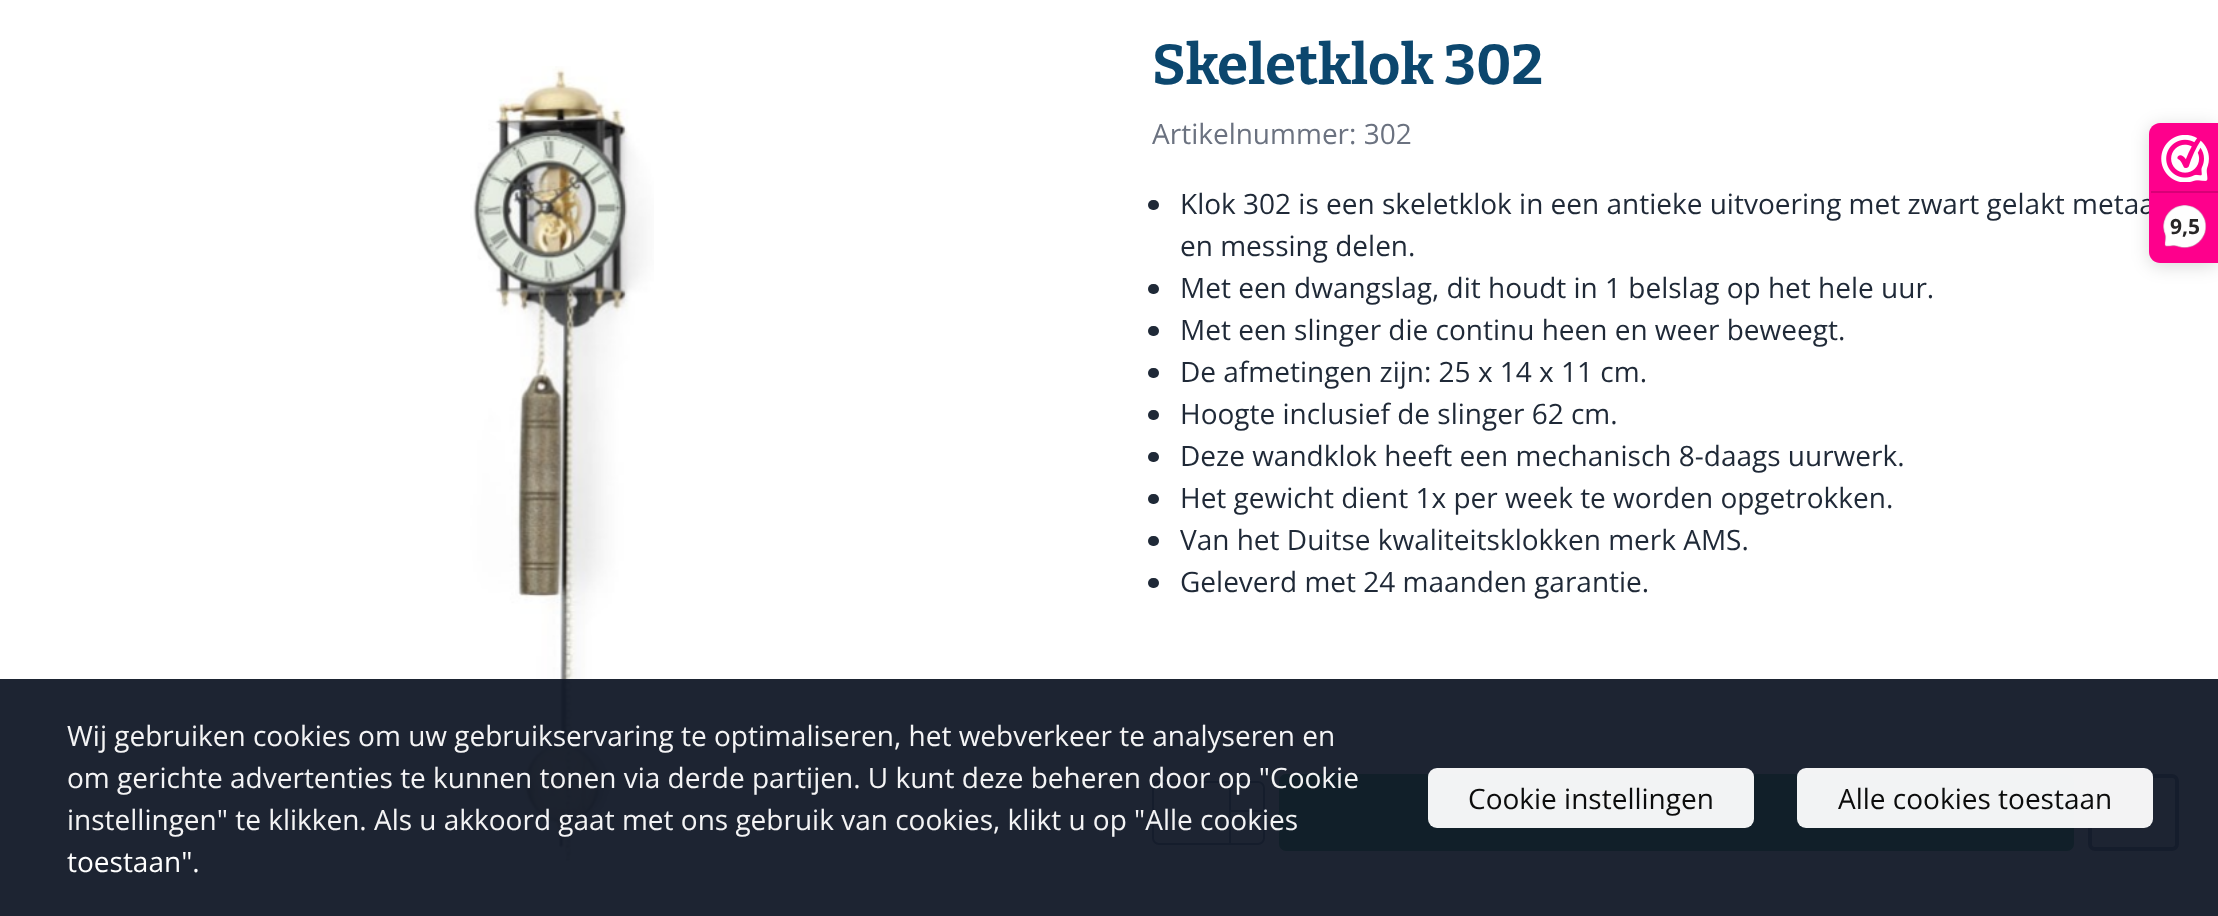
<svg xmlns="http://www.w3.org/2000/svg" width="2218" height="916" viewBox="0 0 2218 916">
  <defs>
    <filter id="blur1" x="-50%" y="-200%" width="200%" height="500%"><feGaussianBlur stdDeviation="9"/></filter>
  </defs>
  <rect width="100%" height="100%" fill="#ffffff"/>
  <image x="470" y="66" width="184" height="795" href="img1.png"/>
  <text x="1152" y="84" font-family="Bitter" font-size="56" font-weight="100" fill="#0c476e">Skeletklok 302</text>
  <text x="1152" y="144" font-family="Open Sans" font-size="28" fill="#6b7280">Artikelnummer: 302</text>
  <rect x="1148" y="200" width="11" height="10" rx="5" fill="#1f2937"/>
  <text x="1180" y="214" font-family="Open Sans" font-size="28" fill="#1f2937">Klok 302 is een skeletklok in een antieke uitvoering met zwart gelakt metaa</text>
  <text x="1180" y="256" font-family="Open Sans" font-size="28" fill="#1f2937">en messing delen.</text>
  <rect x="1148" y="284" width="11" height="10" rx="5" fill="#1f2937"/>
  <text x="1180" y="298" font-family="Open Sans" font-size="28" fill="#1f2937">Met een dwangslag, dit houdt in 1 belslag op het hele uur.</text>
  <rect x="1148" y="326" width="11" height="10" rx="5" fill="#1f2937"/>
  <text x="1180" y="340" font-family="Open Sans" font-size="28" fill="#1f2937">Met een slinger die continu heen en weer beweegt.</text>
  <rect x="1148" y="368" width="11" height="10" rx="5" fill="#1f2937"/>
  <text x="1180" y="382" font-family="Open Sans" font-size="28" fill="#1f2937">De afmetingen zijn: 25 x 14 x 11 cm.</text>
  <rect x="1148" y="410" width="11" height="10" rx="5" fill="#1f2937"/>
  <text x="1180" y="424" font-family="Open Sans" font-size="28" fill="#1f2937">Hoogte inclusief de slinger 62 cm.</text>
  <rect x="1148" y="452" width="11" height="10" rx="5" fill="#1f2937"/>
  <text x="1180" y="466" font-family="Open Sans" font-size="28" fill="#1f2937">Deze wandklok heeft een mechanisch 8-daags uurwerk.</text>
  <rect x="1148" y="494" width="11" height="10" rx="5" fill="#1f2937"/>
  <text x="1180" y="508" font-family="Open Sans" font-size="28" fill="#1f2937">Het gewicht dient 1x per week te worden opgetrokken.</text>
  <rect x="1148" y="536" width="11" height="10" rx="5" fill="#1f2937"/>
  <text x="1180" y="550" font-family="Open Sans" font-size="28" fill="#1f2937">Van het Duitse kwaliteitsklokken merk AMS.</text>
  <rect x="1148" y="578" width="11" height="10" rx="5" fill="#1f2937"/>
  <text x="1180" y="592" font-family="Open Sans" font-size="28" fill="#1f2937">Geleverd met 24 maanden garantie.</text>
  <rect x="1153" y="782" width="111" height="62" rx="6" fill="none" stroke="#6b7280" stroke-width="2"/>
  <rect x="1229" y="810" width="36" height="2" fill="#6b7280"/>
  <rect x="1229" y="781" width="2" height="63" fill="#6b7280"/>
  <rect x="1281" y="776" width="791" height="73" rx="5" fill="#16a34a" stroke="#16a34a" stroke-width="4"/>
  <rect x="2090" y="776" width="87" height="73" rx="5" fill="none" stroke="#6b7280" stroke-width="4"/>
  <image x="2119" y="800" width="28" height="25" href="img2.png"/>
  <rect x="2149" y="126" width="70" height="140" rx="11" fill="#000000" fill-opacity="0.15" filter="url(#blur1)"/>
  <path d="M2160 123H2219V263H2160C2154 263 2149 258 2149 252V134C2149 128 2154 123 2160 123Z" fill="#fe008c"/>
  <image x="2161" y="135" width="48" height="47" href="img3.png"/>
  <rect x="2151" y="191" width="67" height="2" fill="#d80077"/>
  <image x="2163" y="205" width="44" height="44" href="img4.png"/>
  <text x="2170" y="234" font-family="Open Sans" font-size="21" font-weight="bold" fill="#272626">9,5</text>
  <rect x="0" y="679" width="2218" height="237" fill="#111827" fill-opacity="0.95"/>
  <text x="67" y="746" font-family="Open Sans" font-size="28" fill="#f4f4f5">Wij gebruiken cookies om uw gebruikservaring te optimaliseren, het webverkeer te analyseren en</text>
  <text x="67" y="788" font-family="Open Sans" font-size="28" fill="#f4f4f5">om gerichte advertenties te kunnen tonen via derde partijen. U kunt deze beheren door op "Cookie</text>
  <text x="67" y="830" font-family="Open Sans" font-size="28" fill="#f4f4f5">instellingen" te klikken. Als u akkoord gaat met ons gebruik van cookies, klikt u op "Alle cookies</text>
  <text x="67" y="872" font-family="Open Sans" font-size="28" fill="#ffffff">toestaan".</text>
  <rect x="1428" y="768" width="326" height="60" rx="9" fill="#ffffff" fill-opacity="0.95"/>
  <text x="1468" y="809" font-family="Open Sans" font-size="28" fill="#0c0c0c">Cookie instellingen</text>
  <rect x="1797" y="768" width="356" height="60" rx="9" fill="#ffffff" fill-opacity="0.95"/>
  <text x="1838" y="809" font-family="Open Sans" font-size="28" fill="#0c0c0c">Alle cookies toestaan</text>
</svg>
